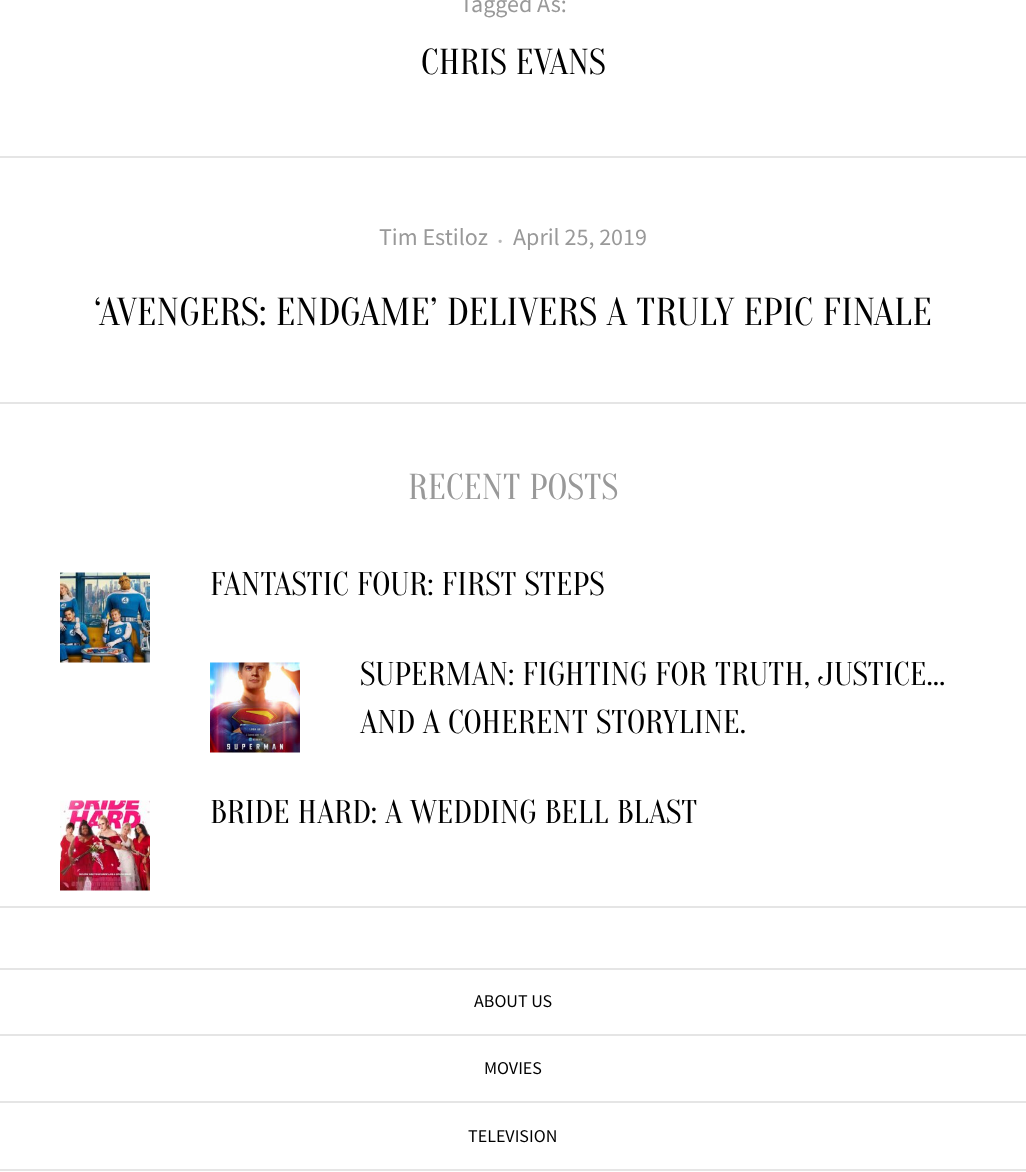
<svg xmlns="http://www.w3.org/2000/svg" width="1026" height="1172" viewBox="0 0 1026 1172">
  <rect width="100%" height="100%" fill="#ffffff"/>
  <rect x="0" y="906" width="1026" height="2" fill="#e5e5e5"/>
  <rect x="0" y="156" width="1026" height="2" fill="#e5e5e5"/>
  <text x="460" y="12" font-family="Source Sans Pro" font-size="24" fill="#999999">Tagged As:</text>
  <text x="421" y="74" font-family="Oranienbaum" font-size="36" fill="#000000">CHRIS EVANS</text>
  <text x="379" y="245" font-family="Source Sans Pro" font-size="24" fill="#999999">Tim Estiloz</text>
  <text x="498" y="245" font-family="Source Sans Pro" font-size="14" fill="#b8b8b8">•</text>
  <text x="513" y="245" font-family="Source Sans Pro" font-size="24" fill="#999999">April 25, 2019</text>
  <text x="94" y="325" font-family="Oranienbaum" font-size="39" fill="#000000">‘AVENGERS: ENDGAME’ DELIVERS A TRULY EPIC FINALE</text>
  <rect x="0" y="402" width="1026" height="2" fill="#e5e5e5"/>
  <text x="408" y="499" font-family="Oranienbaum" font-size="36" fill="#999999">RECENT POSTS</text>
  <image x="60" y="572" width="90" height="91" href="img1.png"/>
  <text x="210" y="595" font-family="Oranienbaum" font-size="33" fill="#000000">FANTASTIC FOUR: FIRST STEPS</text>
  <image x="210" y="662" width="90" height="91" href="img2.png"/>
  <text x="360" y="685" font-family="Oranienbaum" font-size="33" fill="#000000">SUPERMAN: FIGHTING FOR TRUTH, JUSTICE…</text>
  <text x="360" y="733" font-family="Oranienbaum" font-size="33" fill="#000000">AND A COHERENT STORYLINE.</text>
  <image x="60" y="800" width="90" height="91" href="img3.png"/>
  <text x="210" y="823" font-family="Oranienbaum" font-size="33" fill="#000000">BRIDE HARD: A WEDDING BELL BLAST</text>
  <rect x="0" y="968" width="1026" height="2" fill="#e5e5e5"/>
  <text x="474" y="1007" font-family="Source Sans Pro" font-size="18" fill="#000000">ABOUT US</text>
  <rect x="0" y="1034" width="1026" height="2" fill="#e5e5e5"/>
  <text x="484" y="1074" font-family="Source Sans Pro" font-size="18" fill="#000000">MOVIES</text>
  <rect x="0" y="1101" width="1026" height="2" fill="#e5e5e5"/>
  <text x="468" y="1142" font-family="Source Sans Pro" font-size="18" fill="#000000">TELEVISION</text>
  <rect x="0" y="1169" width="1026" height="2" fill="#e5e5e5"/>
</svg>
